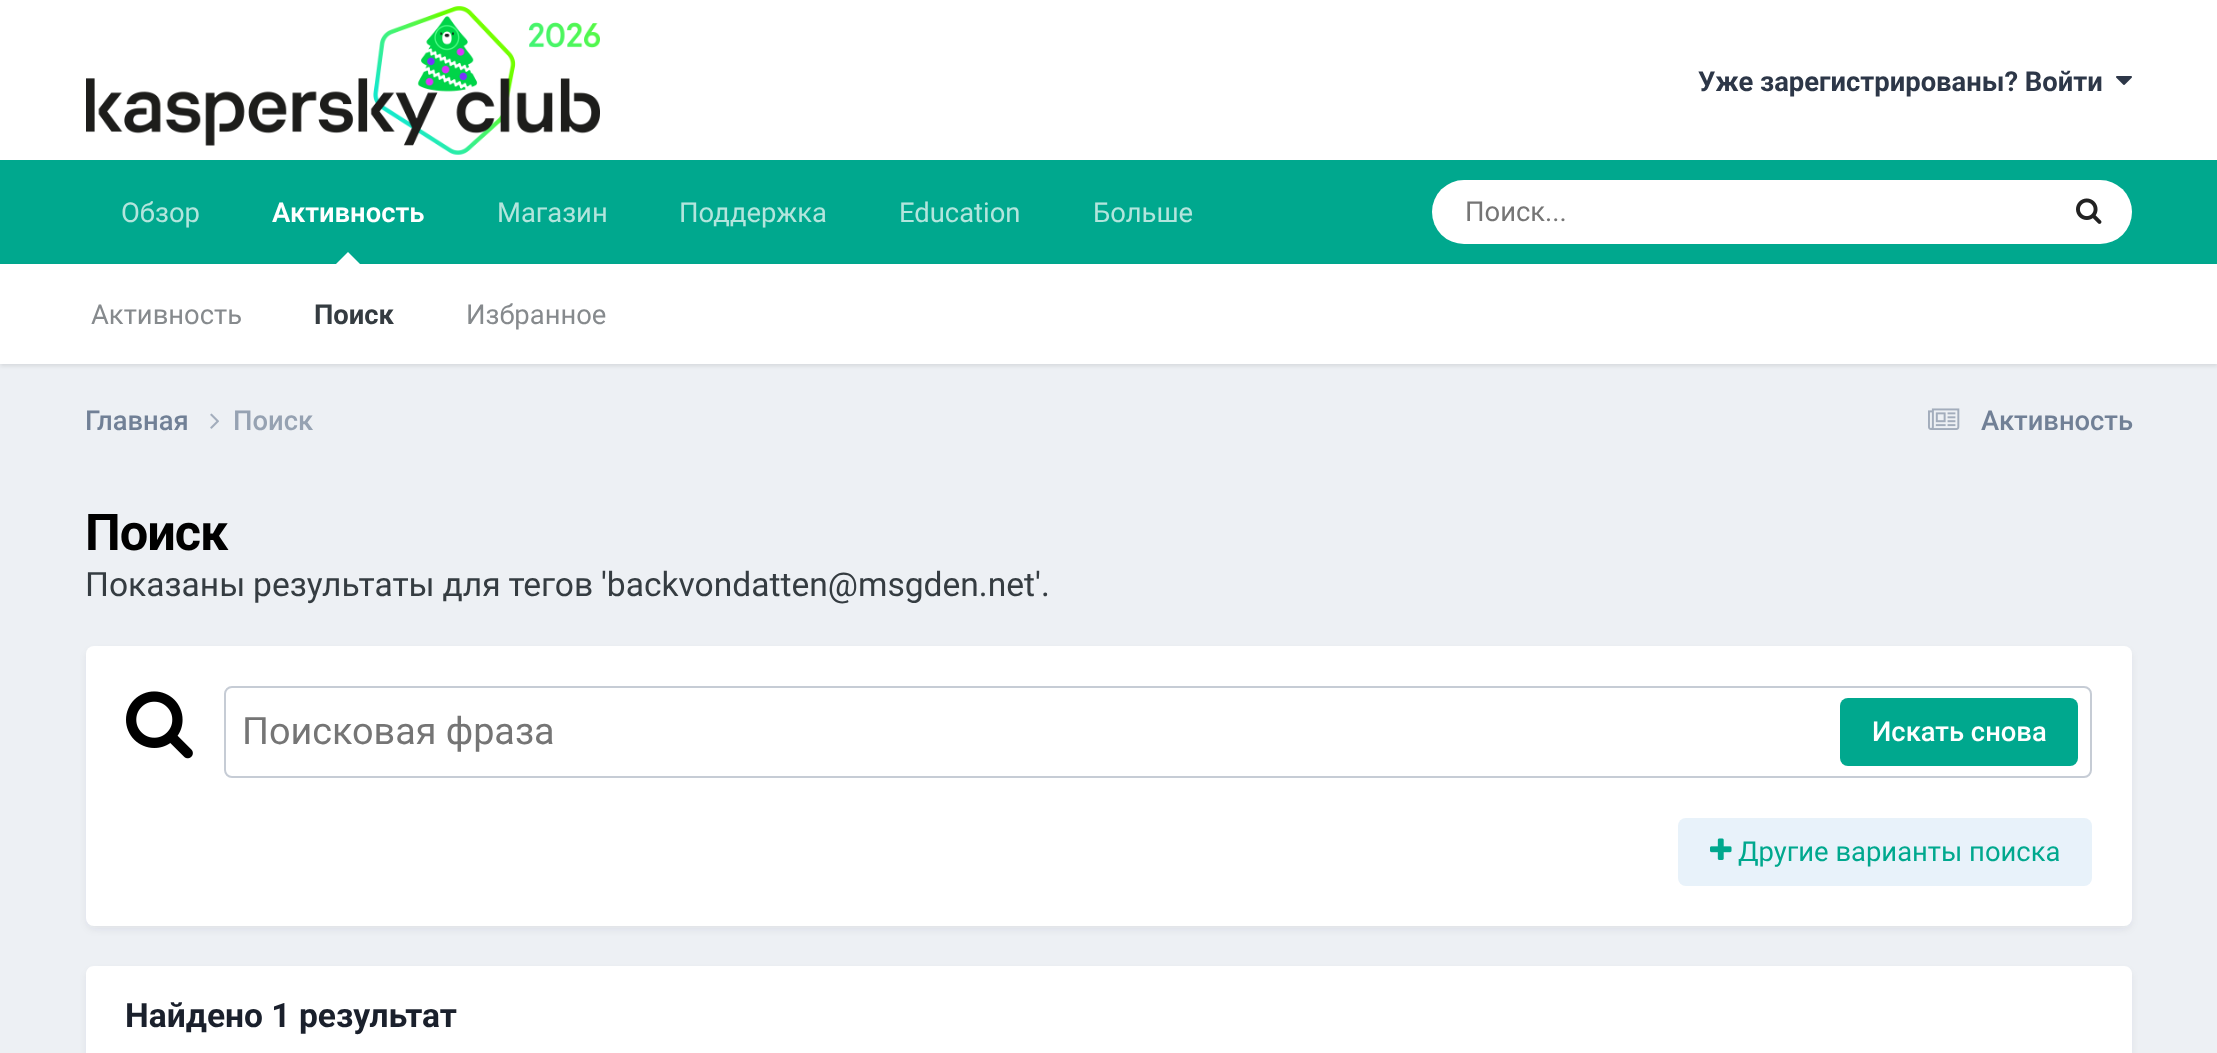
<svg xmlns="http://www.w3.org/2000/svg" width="2217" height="1053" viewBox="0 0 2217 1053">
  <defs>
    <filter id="blur1" x="-50%" y="-200%" width="200%" height="500%"><feGaussianBlur stdDeviation="2"/></filter>
    <filter id="blur2" x="-50%" y="-200%" width="200%" height="500%"><feGaussianBlur stdDeviation="4"/></filter>
  </defs>
  <rect width="100%" height="100%" fill="#edf0f4"/>
  <rect x="0" y="0" width="2217" height="160" fill="#ffffff"/>
  <image x="86" y="6" width="514" height="149" href="img1.png"/>
  <text x="1698" y="91" font-family="Roboto" font-size="27.4" font-weight="bold" fill="#2d3748">Уже зарегистрированы? Войти</text>
  <image x="2116" y="76" width="16" height="9" href="img2.png"/>
  <rect x="0" y="160" width="2217" height="104" fill="#00a88e"/>
  <text x="121" y="222" font-family="Roboto" font-size="27.4" fill="#b3e5dd">Обзор</text>
  <text x="899" y="222" font-family="Roboto" font-size="27.4" fill="#b3e5dd">Education</text>
  <text x="272" y="222" font-family="Roboto" font-size="27.4" font-weight="600" fill="#ffffff">Активность</text>
  <rect x="0" y="266" width="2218" height="100" fill="#000000" fill-opacity="0.1" filter="url(#blur1)"/>
  <path d="M360 264H336L348 252Z" fill="#ffffff"/>
  <rect x="0" y="264" width="2217" height="100" fill="#ffffff"/>
  <text x="91" y="324" font-family="Roboto" font-size="27.4" fill="#868a8d">Активность</text>
  <text x="314" y="324" font-family="Roboto" font-size="27.4" font-weight="bold" fill="#353c41">Поиск</text>
  <text x="466" y="324" font-family="Roboto" font-size="27.4" fill="#868a8d">Избранное</text>
  <text x="497" y="222" font-family="Roboto" font-size="27.4" fill="#b3e5dd">Магазин</text>
  <text x="679" y="222" font-family="Roboto" font-size="27.4" fill="#b3e5dd">Поддержка</text>
  <text x="1093" y="222" font-family="Roboto" font-size="27.4" fill="#b3e5dd">Больше</text>
  <rect x="1432" y="180" width="700" height="64" rx="32" fill="#ffffff"/>
  <text x="1465" y="221" font-family="Roboto" font-size="27.4" fill="#757575">Поиск...</text>
  <image x="2076" y="198" width="26" height="26" href="img3.png"/>
  <text x="85" y="430" font-family="Roboto" font-size="27.4" font-weight="500" fill="#718096">Главная</text>
  <image x="210" y="413" width="9" height="16" href="img4.png"/>
  <text x="233" y="430" font-family="Roboto" font-size="27.4" font-weight="500" fill="#96a2b2">Поиск</text>
  <image x="1928" y="408" width="32" height="22" href="img5.png"/>
  <text x="1981" y="430" font-family="Roboto" font-size="27.4" font-weight="500" fill="#718096">Активность</text>
  <text x="85" y="550" font-family="Roboto" font-size="50.5" font-weight="bold" letter-spacing="-1" fill="#000000">Поиск</text>
  <text x="85" y="596" word-spacing="-0.5" font-family="Roboto" font-size="33.6" fill="#353c41">Показаны результаты для тегов 'backvondatten@msgden.net'.</text>
  <rect x="88" y="652" width="2042" height="276" rx="6" fill="#2d3748" fill-opacity="0.1" filter="url(#blur2)"/>
  <rect x="86" y="646" width="2046" height="280" rx="8" fill="#ffffff"/>
  <image x="126" y="691" width="67" height="68" href="img6.png"/>
  <rect x="225" y="687" width="1866" height="90" rx="7" fill="none" stroke="#c6ccd5" stroke-width="2"/>
  <text x="242" y="744" font-family="Roboto" font-size="37.75" fill="#757575">Поисковая фраза</text>
  <rect x="1840" y="698" width="238" height="68" rx="8" fill="#00a88e"/>
  <text x="1872" y="741" font-family="Roboto" font-size="27.4" font-weight="500" fill="#ffffff">Искать снова</text>
  <rect x="1678" y="818" width="414" height="68" rx="8" fill="#e8f2fa"/>
  <image x="1710" y="838" width="22" height="22" href="img7.png"/>
  <text x="1738" y="861" font-family="Roboto" font-size="27.4" fill="#00a88e">Другие варианты поиска</text>
  <rect x="88" y="972" width="2042" height="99" rx="6" fill="#2d3748" fill-opacity="0.1" filter="url(#blur2)"/>
  <path d="M94 966H2124C2128.5 966 2132 969.5 2132 974V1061H86V974C86 969.5 89.5 966 94 966Z" fill="#ffffff"/>
  <text x="125" y="1027" font-family="Roboto" font-size="33.6" font-weight="bold" fill="#1a202c">Найдено 1 результат</text>
</svg>
